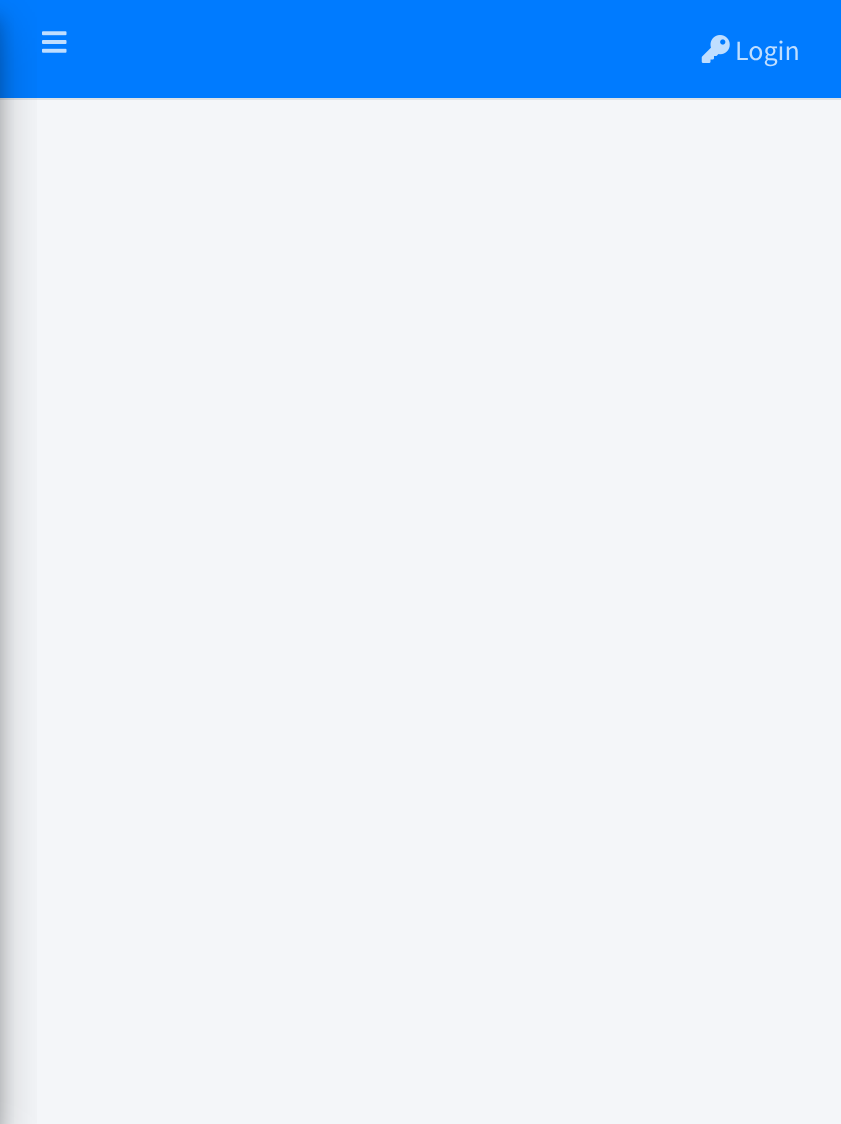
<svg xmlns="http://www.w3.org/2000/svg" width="841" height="1124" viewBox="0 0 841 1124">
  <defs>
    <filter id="blur1" x="-50%" y="-200%" width="200%" height="500%"><feGaussianBlur stdDeviation="9"/></filter>
    <filter id="blur2" x="-50%" y="-200%" width="200%" height="500%"><feGaussianBlur stdDeviation="24.5"/></filter>
  </defs>
  <rect width="100%" height="100%" fill="#f4f6f9"/>
  <rect x="0" y="0" width="841" height="98" fill="#007bff"/>
  <rect x="0" y="98" width="841" height="2" fill="#dee2e6"/>
  <rect x="-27" y="18" width="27" height="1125" fill="#000000" fill-opacity="0.22" filter="url(#blur1)"/>
  <image x="42" y="31" width="25" height="22" href="img1.png"/>
  <rect x="-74" y="25" width="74" height="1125" fill="#000000" fill-opacity="0.25" filter="url(#blur2)"/>
  <image x="701" y="35" width="29" height="28" href="img2.png"/>
  <text x="735" y="60" font-family="Source Sans Pro" font-size="28" fill="#bfdeff">Login</text>
</svg>
